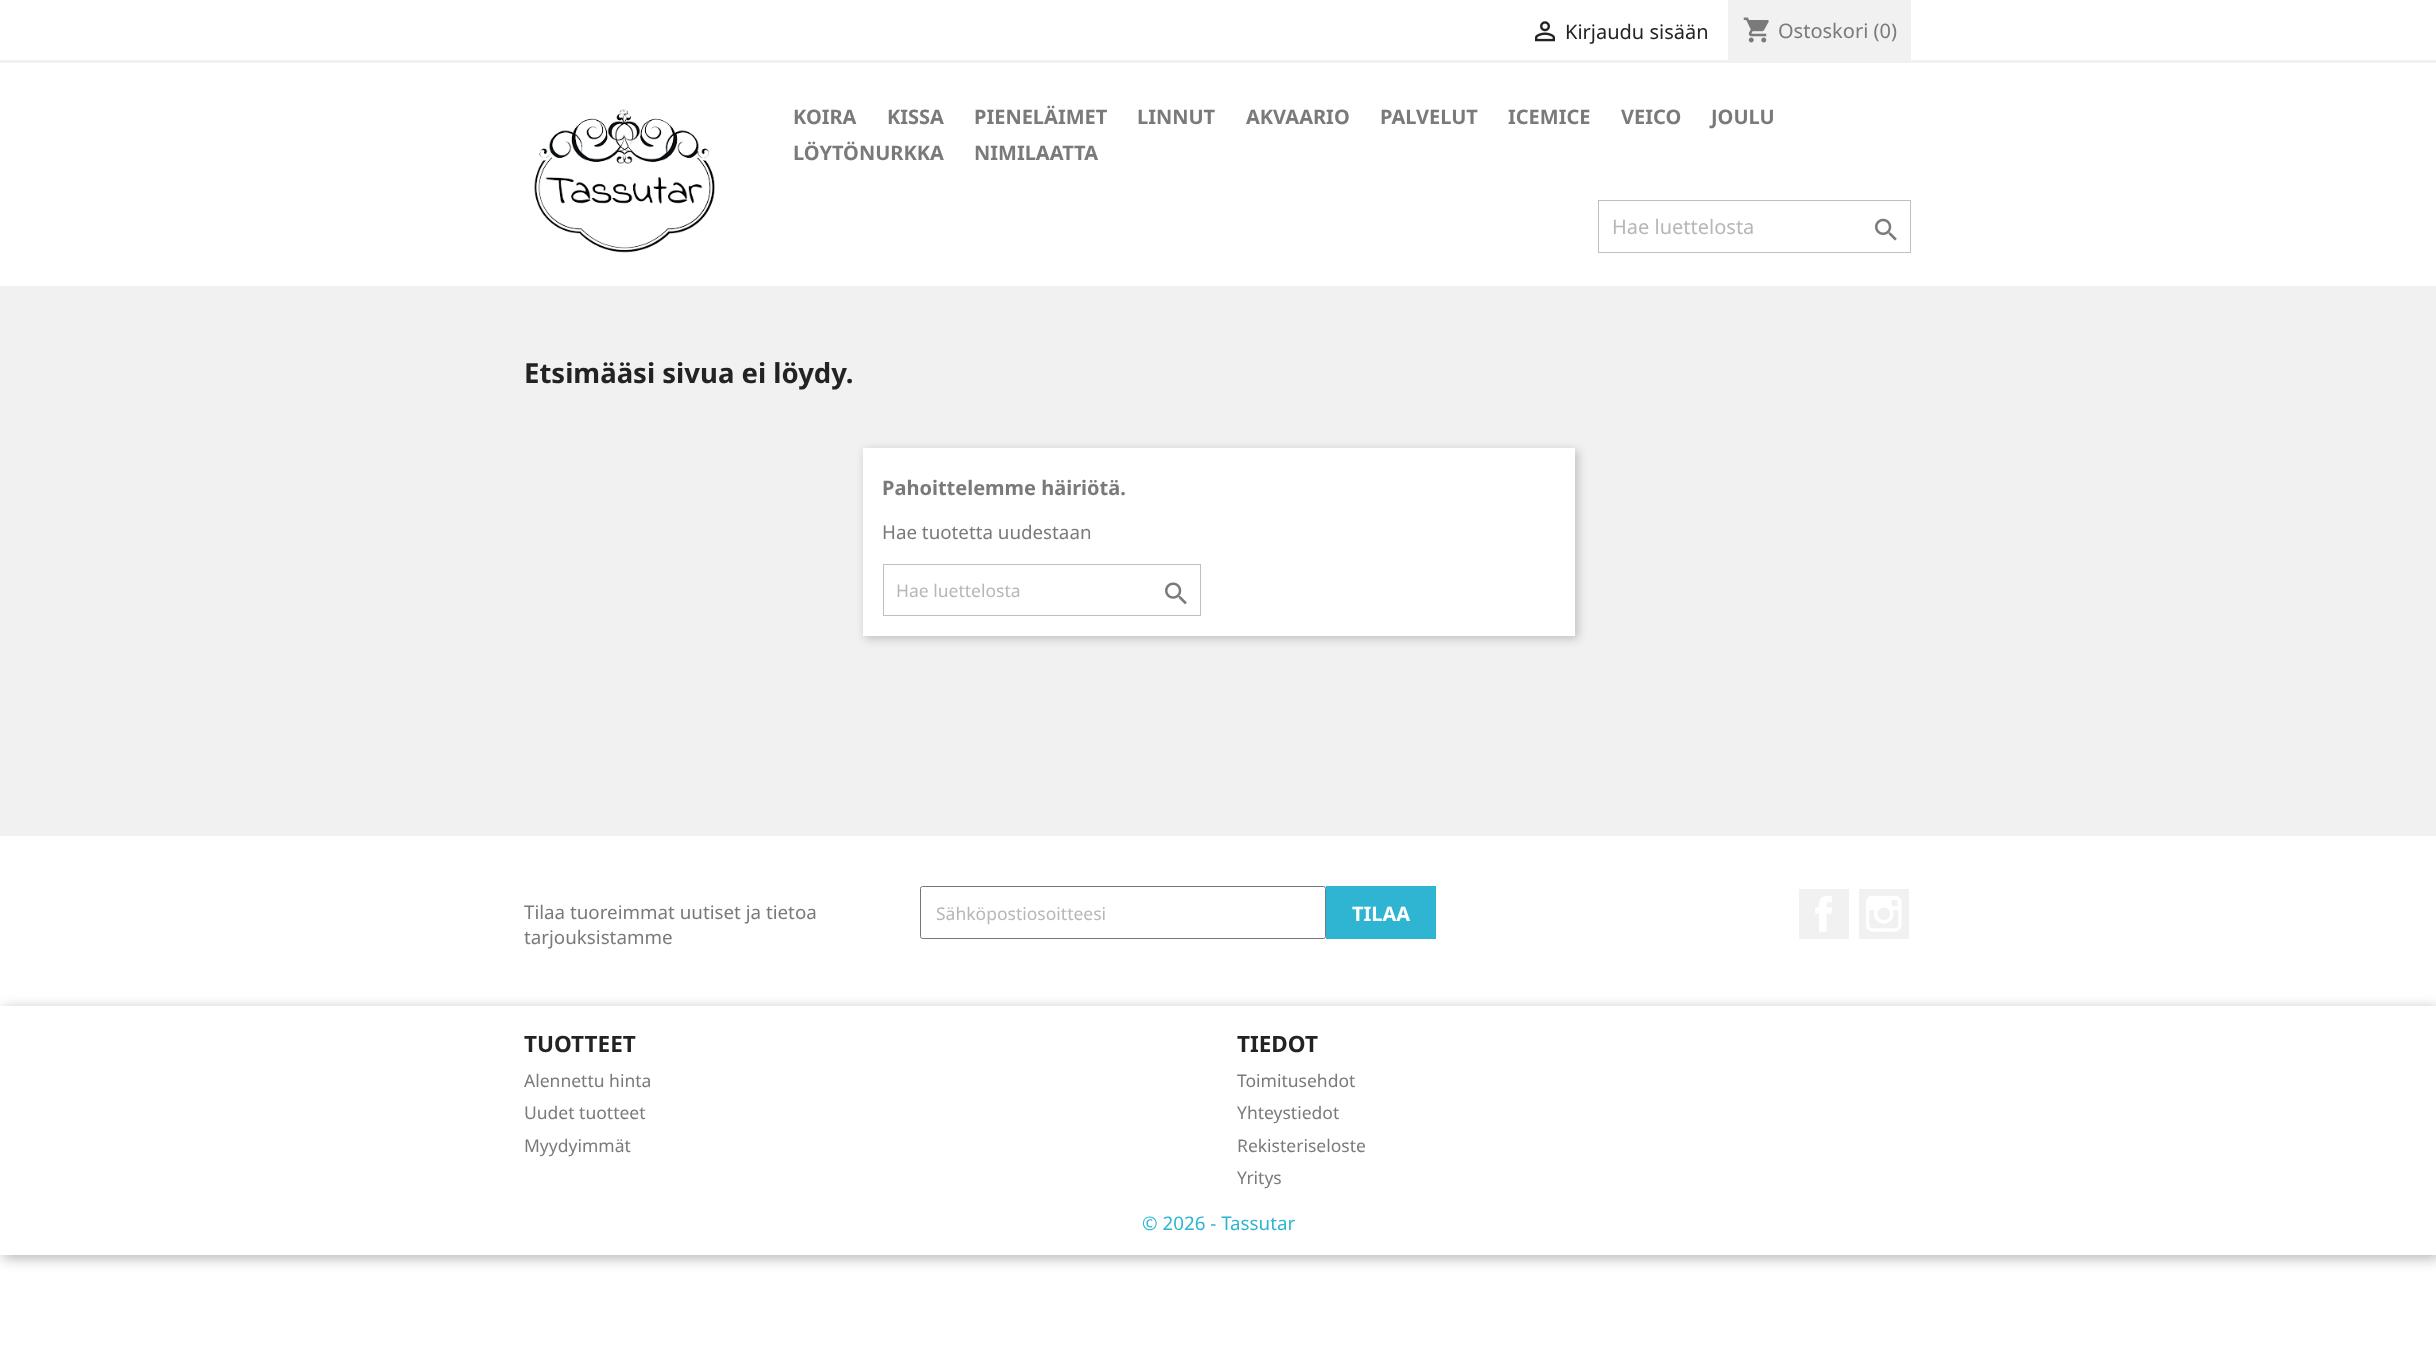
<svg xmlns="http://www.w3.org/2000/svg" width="2436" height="1369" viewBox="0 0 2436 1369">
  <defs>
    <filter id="blur1" x="-50%" y="-200%" width="200%" height="500%"><feGaussianBlur stdDeviation="5"/></filter>
    <clipPath id="clip1"><path d="M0 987H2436V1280H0ZM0 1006H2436V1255H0Z" clip-rule="evenodd"/></clipPath>
    <filter id="blur2" x="-50%" y="-200%" width="200%" height="500%"><feGaussianBlur stdDeviation="7"/></filter>
  </defs>
  <rect width="100%" height="100%" fill="#ffffff"/>
  <rect x="0" y="60" width="2436" height="3" fill="#f1f1f1"/>
  <image x="1535" y="21" width="20" height="21" href="img1.png"/>
  <text x="1565" y="39" font-family="Noto Sans" font-size="20" fill="#232323">Kirjaudu sisään</text>
  <rect x="1728" y="0" width="183" height="60" fill="#f1f1f1"/>
  <image x="1743" y="17" width="26" height="26" href="img2.png"/>
  <text x="1778" y="38" font-family="Noto Sans" font-size="20" fill="#7a7a7a">Ostoskori (0)</text>
  <image x="534" y="109" width="181" height="144" href="img3.png"/>
  <text x="793" y="124" font-family="Noto Sans" font-size="20" font-weight="bold" fill="#7a7a7a">KOIRA</text>
  <text x="887" y="124" font-family="Noto Sans" font-size="20" font-weight="bold" fill="#7a7a7a">KISSA</text>
  <text x="974" y="124" font-family="Noto Sans" font-size="20" font-weight="bold" fill="#7a7a7a">PIENELÄIMET</text>
  <text x="1137" y="124" font-family="Noto Sans" font-size="20" font-weight="bold" fill="#7a7a7a">LINNUT</text>
  <text x="1246" y="124" font-family="Noto Sans" font-size="20" font-weight="bold" fill="#7a7a7a">AKVAARIO</text>
  <text x="1380" y="124" font-family="Noto Sans" font-size="20" font-weight="bold" fill="#7a7a7a">PALVELUT</text>
  <text x="1508" y="124" font-family="Noto Sans" font-size="20" font-weight="bold" fill="#7a7a7a">ICEMICE</text>
  <text x="1621" y="124" font-family="Noto Sans" font-size="20" font-weight="bold" fill="#7a7a7a">VEICO</text>
  <text x="1711" y="124" font-family="Noto Sans" font-size="20" font-weight="bold" fill="#7a7a7a">JOULU</text>
  <text x="793" y="160" font-family="Noto Sans" font-size="20" font-weight="bold" fill="#7a7a7a">LÖYTÖNURKKA</text>
  <text x="974" y="160" font-family="Noto Sans" font-size="20" font-weight="bold" fill="#7a7a7a">NIMILAATTA</text>
  <rect x="1598.5" y="200.5" width="312" height="52" fill="none" stroke="#bfbfbf"/>
  <text x="1612" y="234" font-family="Noto Sans" font-size="20" fill="#b7b7b7">Hae luettelosta</text>
  <image x="1875" y="218" width="22" height="23" href="img4.png"/>
  <rect x="0" y="286" width="2436" height="550" fill="#f1f1f1"/>
  <text x="524" y="383" font-family="Noto Sans" font-size="27.5" font-weight="bold" fill="#232323">Etsimääsi sivua ei löydy.</text>
  <rect x="865" y="450" width="713" height="189" fill="#000000" fill-opacity="0.2" filter="url(#blur1)"/>
  <rect x="863" y="448" width="712" height="188" fill="#ffffff"/>
  <text x="882" y="495" font-family="Noto Sans" font-size="20" font-weight="bold" fill="#7a7a7a">Pahoittelemme häiriötä.</text>
  <text x="882" y="539" font-family="Noto Sans" font-size="18.75" fill="#7a7a7a">Hae tuotetta uudestaan</text>
  <rect x="883.5" y="564.5" width="317" height="51" fill="none" stroke="#bfbfbf"/>
  <text x="896" y="597" font-family="Noto Sans" font-size="17.5" fill="#b7b7b7">Hae luettelosta</text>
  <image x="1165" y="582" width="22" height="23" href="img5.png"/>
  <text x="524" y="919" font-family="Noto Sans" font-size="18.75" fill="#7a7a7a">Tilaa tuoreimmat uutiset ja tietoa</text>
  <text x="524" y="944" font-family="Noto Sans" font-size="18.75" fill="#7a7a7a">tarjouksistamme</text>
  <rect x="920.5" y="886.5" width="405" height="52" rx="2" fill="none" stroke="#767676"/>
  <text x="936" y="920" font-family="Noto Sans" font-size="17.5" fill="#b7b7b7">Sähköpostiosoitteesi</text>
  <rect x="1326" y="886" width="110" height="53" fill="#2fb5d2"/>
  <text x="1352" y="921" font-family="Noto Sans" font-size="20" font-weight="bold" fill="#ffffff">TILAA</text>
  <rect x="1799" y="889" width="50" height="50" fill="#f1f1f1"/>
  <image x="1815" y="896" width="17" height="36" href="img6.png"/>
  <rect x="1859" y="889" width="50" height="50" fill="#f1f1f1"/>
  <image x="1866" y="896" width="36" height="36" href="img7.png"/>
  <g clip-path="url(#clip1)">
    <rect x="3" y="1009" width="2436" height="249" fill="#000000" fill-opacity="0.3" filter="url(#blur2)"/>
  </g>
  <text x="524" y="1052" font-family="Noto Sans" font-size="22.5" font-weight="bold" fill="#232323">TUOTTEET</text>
  <text x="524" y="1087" font-family="Noto Sans" font-size="17.5" fill="#7a7a7a">Alennettu hinta</text>
  <text x="524" y="1119" font-family="Noto Sans" font-size="17.5" fill="#7a7a7a">Uudet tuotteet</text>
  <text x="524" y="1152" font-family="Noto Sans" font-size="17.5" fill="#7a7a7a">Myydyimmät</text>
  <text x="1237" y="1052" font-family="Noto Sans" font-size="22.5" font-weight="bold" fill="#232323">TIEDOT</text>
  <text x="1237" y="1087" font-family="Noto Sans" font-size="17.5" fill="#7a7a7a">Toimitusehdot</text>
  <text x="1237" y="1119" font-family="Noto Sans" font-size="17.5" fill="#7a7a7a">Yhteystiedot</text>
  <text x="1237" y="1152" font-family="Noto Sans" font-size="17.5" fill="#7a7a7a">Rekisteriseloste</text>
  <text x="1237" y="1184" font-family="Noto Sans" font-size="17.5" fill="#7a7a7a">Yritys</text>
  <text x="1142" y="1230" font-family="Noto Sans" font-size="18.75" fill="#2fb5d2">© 2026 - Tassutar</text>
</svg>
